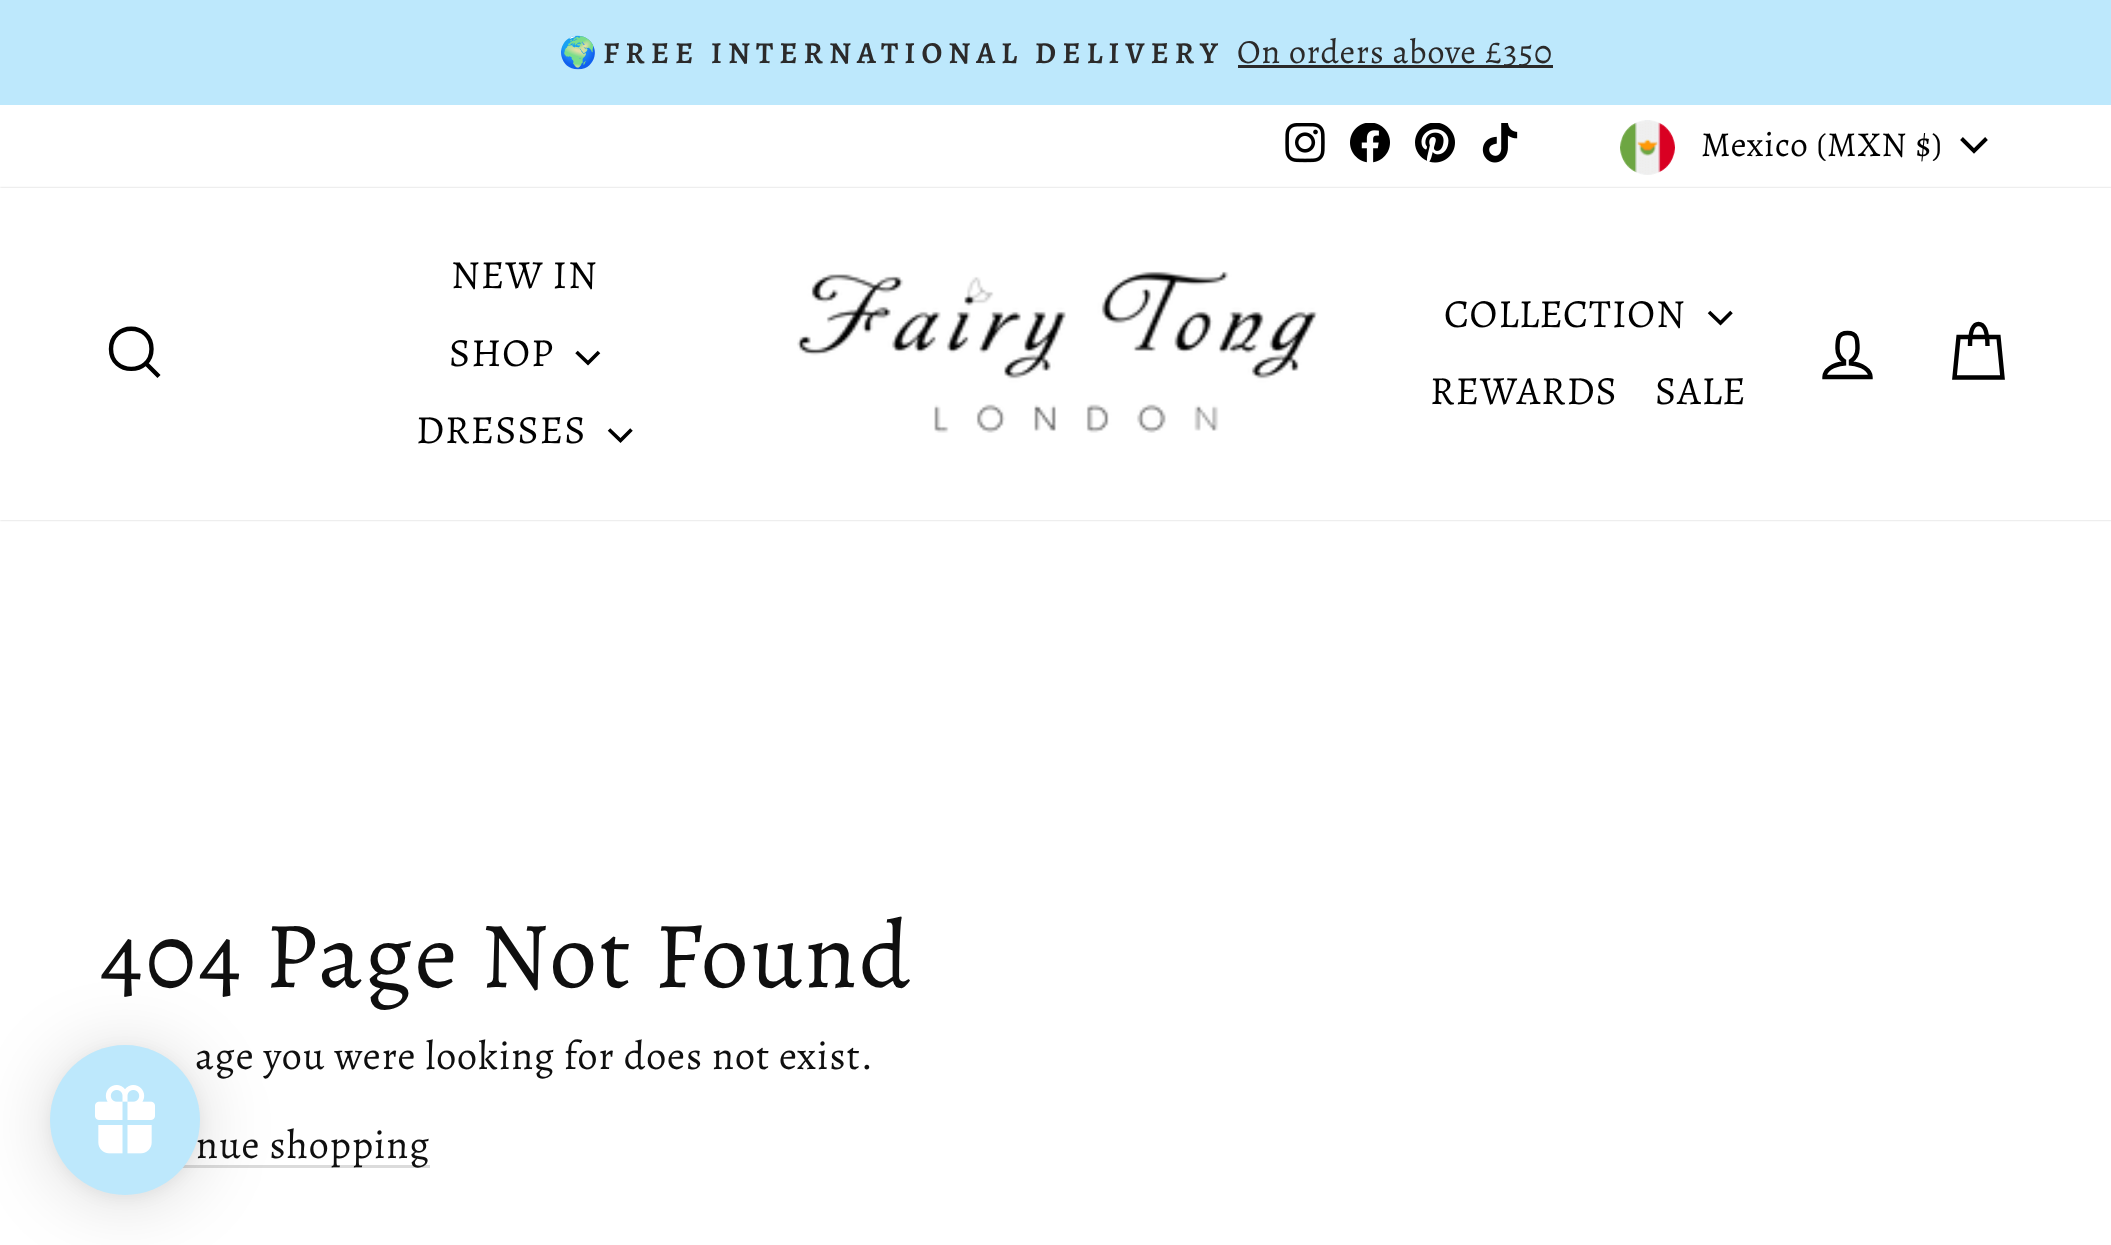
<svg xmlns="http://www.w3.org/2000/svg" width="2111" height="1245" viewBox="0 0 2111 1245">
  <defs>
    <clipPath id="clip1"><path d="M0 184H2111V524H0ZM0 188H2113V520H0Z" clip-rule="evenodd"/></clipPath>
    <filter id="blur1" x="-50%" y="-200%" width="200%" height="500%"><feGaussianBlur stdDeviation="1"/></filter>
    <filter id="blur2" x="-50%" y="-200%" width="200%" height="500%"><feGaussianBlur stdDeviation="37.5"/></filter>
    <filter id="blur3" x="-50%" y="-200%" width="200%" height="500%"><feGaussianBlur stdDeviation="7.5"/></filter>
  </defs>
  <rect width="100%" height="100%" fill="#ffffff"/>
  <rect x="0" y="0" width="2111" height="105" fill="#bde8fc"/>
  <text x="559" y="63" font-family="Noto Color Emoji" font-size="30.6" font-weight="bold" letter-spacing="6.1" fill="#2b2a2a">🌍</text>
  <text x="603" y="63" font-family="Alegreya" font-size="30.6" font-weight="600" letter-spacing="6.1" fill="#2b2a2a">FREE INTERNATIONAL DELIVERY</text>
  <rect x="1238" y="65" width="315" height="3" fill="#2b2a2a"/>
  <text x="1237" y="63" font-family="Alegreya" font-size="34" letter-spacing="1" fill="#2b2a2a">On orders above £350</text>
  <image x="1285" y="123" width="40" height="40" href="img1.png"/>
  <image x="1350" y="123" width="40" height="40" href="img2.png"/>
  <image x="1415" y="123" width="40" height="40" href="img3.png"/>
  <image x="1482" y="123" width="36" height="40" href="img4.png"/>
  <image x="1620" y="120" width="55" height="55" href="img5.png"/>
  <text x="1701" y="156" font-family="Alegreya" font-size="35" letter-spacing="0.9" fill="#000000">Mexico (MXN $)</text>
  <path d="M1961.5 138.5L1974 151L1986.5 138.5" fill="none" stroke="#000000" stroke-width="3.9"/>
  <g clip-path="url(#clip1)">
    <rect x="0" y="188" width="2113" height="332" fill="#000000" fill-opacity="0.2" filter="url(#blur1)"/>
  </g>
  <path d="M151.5 349C151.5 375.5 111 375.5 111 349C111 322 151.5 322 151.5 349ZM159 376.5L146 363.5" fill="none" stroke="#000000" stroke-width="4.4"/>
  <text x="451" y="288" font-family="Alegreya" font-size="40" letter-spacing="1" fill="#000000">NEW IN</text>
  <text x="449" y="366" font-family="Alegreya" font-size="40" letter-spacing="1" fill="#000000">SHOP</text>
  <path d="M576.5 352L588 363L599 352" fill="none" stroke="#000000" stroke-width="3.6"/>
  <text x="416" y="443" font-family="Alegreya" font-size="40" letter-spacing="1" fill="#000000">DRESSES</text>
  <path d="M609 429.5L620.5 440.5L631.5 429.5" fill="none" stroke="#000000" stroke-width="3.6"/>
  <image x="797" y="271" width="521" height="162" href="img6.png"/>
  <text x="1444" y="327" font-family="Alegreya" font-size="40" letter-spacing="1" fill="#000000">COLLECTION</text>
  <path d="M1709 312L1720.5 323L1731.5 312" fill="none" stroke="#000000" stroke-width="3.6"/>
  <text x="1430" y="404" font-family="Alegreya" font-size="40" letter-spacing="1" fill="#000000">REWARDS</text>
  <text x="1655" y="404" font-family="Alegreya" font-size="40" letter-spacing="1" fill="#000000">SALE</text>
  <path d="M1851 363.5V361C1854.5 358.5 1857.5 353.5 1857.5 348.5C1857.5 340 1857.5 333 1847.5 333C1837.5 333 1837.5 340 1837.5 348.5C1837.5 353.5 1840.5 358.5 1844 361V363.5C1833 364.5 1824.5 370 1824.5 377H1870.5C1870.5 370 1862 364.5 1851 363.5Z" fill="none" stroke="#000000" stroke-width="4.4"/>
  <path d="M1970 346C1970 328.5 1973.5 324 1978.5 324C1983.5 324 1987.5 328.5 1987.5 346M1958.5 337H1998.5L2002.5 377.5H1954.5Z" fill="none" stroke="#000000" stroke-width="4.4"/>
  <text x="100" y="987" font-family="Alegreya" font-size="95" letter-spacing="2.4" fill="#0f0f0f">404 Page Not Found</text>
  <text x="195" y="1069" font-family="Alegreya" font-size="40" letter-spacing="1" fill="#0f0f0f">age you were looking for does not exist.</text>
  <rect x="182" y="1165" width="248" height="3" fill="#dbdbdb"/>
  <text x="196" y="1158" font-family="Alegreya" font-size="40" letter-spacing="1" fill="#0f0f0f">nue shopping</text>
  <rect x="50" y="1050" width="150" height="150" rx="75" fill="#000000" fill-opacity="0.15" filter="url(#blur2)"/>
  <rect x="50" y="1048" width="150" height="150" rx="75" fill="#000000" fill-opacity="0.05" filter="url(#blur3)"/>
  <circle cx="125" cy="1120" r="75" fill="#bde8fc"/>
  <image x="95" y="1085" width="60" height="69" href="img7.png"/>
</svg>
